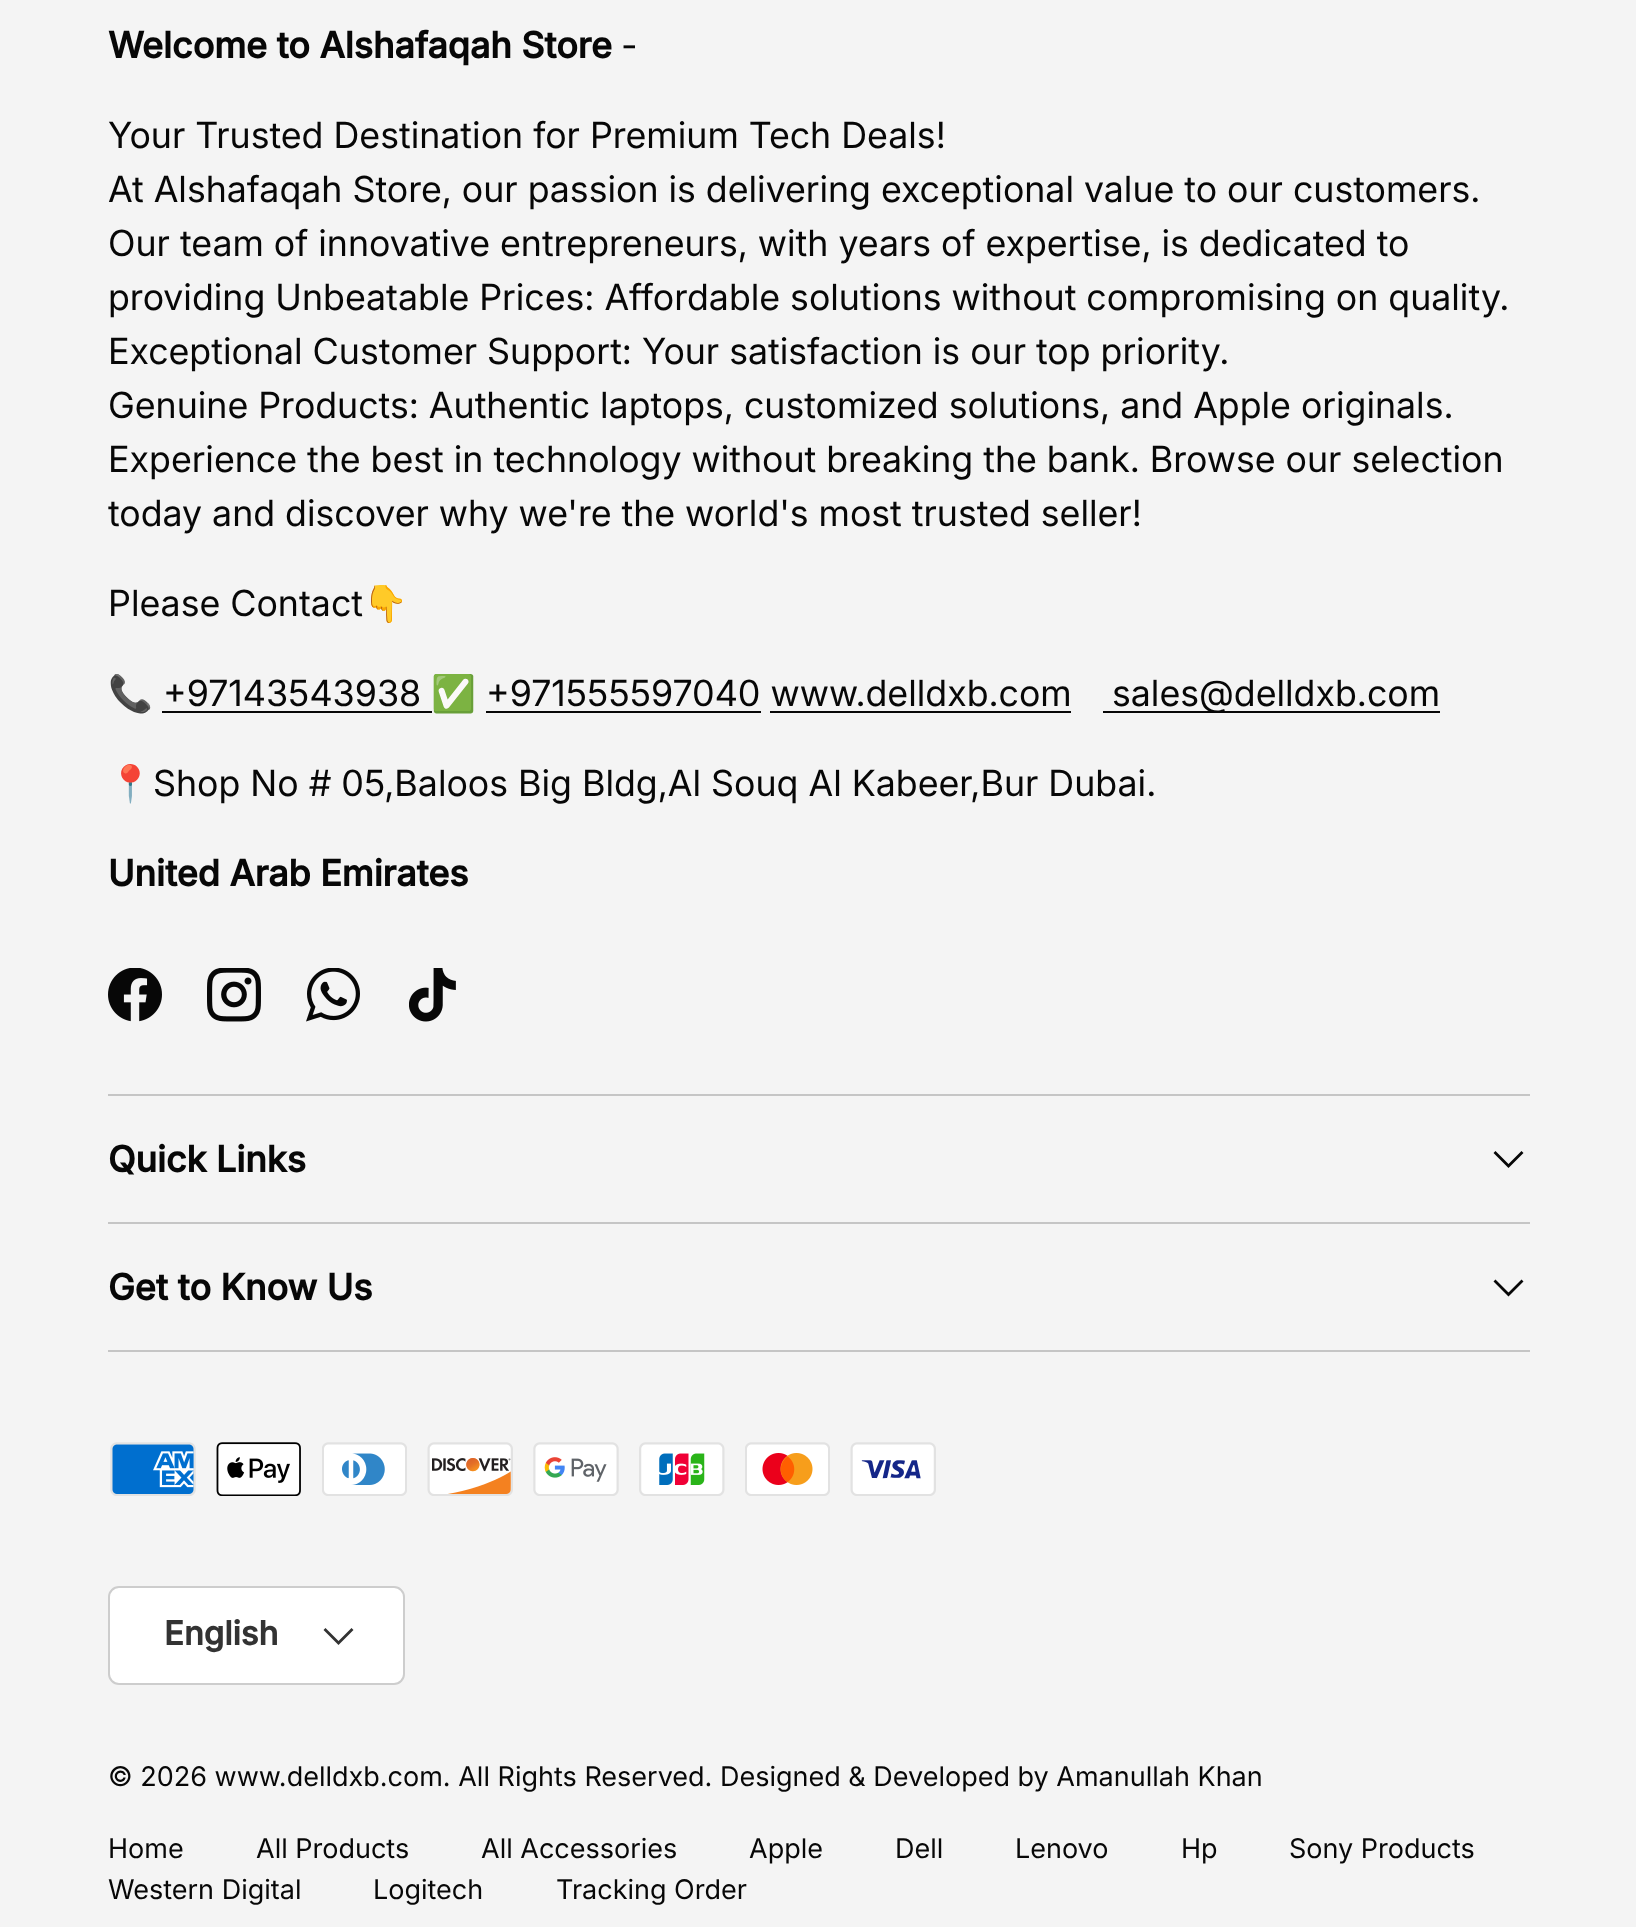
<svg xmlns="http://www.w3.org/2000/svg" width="1636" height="1927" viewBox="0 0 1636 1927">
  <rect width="100%" height="100%" fill="#f4f4f4"/>
  <text x="108" y="58" font-family="Inter" font-size="36" font-weight="bold" fill="#070707">Welcome to Alshafaqah Store</text>
  <text x="621" y="58" font-family="Inter" font-size="36" fill="#070707">-</text>
  <text x="108" y="148" font-family="'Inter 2'" font-size="36" fill="#070707">Your Trusted Destination for Premium Tech Deals!</text>
  <text x="108" y="202" font-family="'Inter 2'" font-size="36" fill="#070707">At Alshafaqah Store, our passion is delivering exceptional value to our customers.</text>
  <text x="108" y="256" font-family="'Inter 2'" font-size="36" fill="#070707">Our team of innovative entrepreneurs, with years of expertise, is dedicated to</text>
  <text x="108" y="310" font-family="'Inter 2'" font-size="36" fill="#070707">providing Unbeatable Prices: Affordable solutions without compromising on quality.</text>
  <text x="108" y="364" font-family="'Inter 2'" font-size="36" fill="#070707">Exceptional Customer Support: Your satisfaction is our top priority.</text>
  <text x="108" y="418" font-family="'Inter 2'" font-size="36" fill="#070707">Genuine Products: Authentic laptops, customized solutions, and Apple originals.</text>
  <text x="108" y="472" font-family="'Inter 2'" font-size="36" fill="#070707">Experience the best in technology without breaking the bank. Browse our selection</text>
  <text x="108" y="526" font-family="'Inter 2'" font-size="36" fill="#070707">today and discover why we're the world's most trusted seller!</text>
  <text x="108" y="616" font-family="'Inter 2'" font-size="36" fill="#070707">Please Contact</text>
  <text x="363" y="616" font-family="Noto Color Emoji" font-size="36" fill="#070707">👇</text>
  <text x="108" y="706" font-family="Noto Color Emoji" font-size="36" fill="#070707">📞</text>
  <text x="163" y="706" font-family="'Inter 2'" font-size="36" fill="#070707">+97143543938</text>
  <rect x="162" y="711" width="270" height="2" fill="#070707"/>
  <text x="431" y="706" font-family="Noto Color Emoji" font-size="36" fill="#070707">✅</text>
  <text x="486" y="706" font-family="'Inter 2'" font-size="36" fill="#070707">+971555597040 www.delldxb.com</text>
  <rect x="486" y="711" width="275" height="2" fill="#070707"/>
  <rect x="1103" y="711" width="337" height="2" fill="#070707"/>
  <text x="1112" y="706" font-family="'Inter 2'" font-size="36" fill="#070707">sales@delldxb.com</text>
  <rect x="770" y="711" width="301" height="2" fill="#070707"/>
  <text x="108" y="796" font-family="Noto Color Emoji" font-size="36" fill="#070707">📍</text>
  <text x="153" y="796" font-family="'Inter 2'" font-size="36" fill="#070707">Shop No # 05,Baloos Big Bldg,Al Souq Al Kabeer,Bur Dubai.</text>
  <text x="108" y="886" font-family="Inter" font-size="36" font-weight="bold" fill="#070707">United Arab Emirates</text>
  <image x="108" y="968" width="54" height="54" href="img1.png"/>
  <image x="207" y="968" width="54" height="54" href="img2.png"/>
  <image x="306" y="968" width="54" height="54" href="img3.png"/>
  <image x="409" y="968" width="47" height="54" href="img4.png"/>
  <rect x="108" y="1094" width="1422" height="2" fill="#c5c5c5"/>
  <rect x="108" y="1222" width="1422" height="2" fill="#c5c5c5"/>
  <text x="108" y="1172" font-family="Inter" font-size="36" font-weight="bold" fill="#070707">Quick Links</text>
  <path d="M1522.5 1152L1508.5 1166L1494.5 1152" fill="none" stroke="#070707" stroke-width="2.8"/>
  <rect x="108" y="1350" width="1422" height="2" fill="#c5c5c5"/>
  <text x="108" y="1300" font-family="Inter" font-size="36" font-weight="bold" fill="#070707">Get to Know Us</text>
  <path d="M1522.5 1280.5L1508.5 1294.5L1494.5 1280.5" fill="none" stroke="#070707" stroke-width="2.8"/>
  <image x="110" y="1442" width="86" height="54" href="img5.png"/>
  <image x="216" y="1442" width="85" height="54" href="img6.png"/>
  <image x="322" y="1442" width="85" height="54" href="img7.png"/>
  <image x="427" y="1442" width="86" height="54" href="img8.png"/>
  <image x="533" y="1442" width="86" height="54" href="img9.png"/>
  <image x="639" y="1442" width="86" height="54" href="img10.png"/>
  <image x="745" y="1442" width="85" height="54" href="img11.png"/>
  <image x="850" y="1442" width="86" height="54" href="img12.png"/>
  <rect x="108" y="1586" width="297" height="99" rx="11" fill="#ffffff"/>
  <rect x="109" y="1587" width="295" height="97" rx="10" fill="none" stroke="#070707" stroke-opacity="0.2" stroke-width="2"/>
  <text x="164" y="1645" font-family="'Inter 2'" font-size="33" font-weight="bold" fill="#333333">English</text>
  <path d="M352.5 1629L338.5 1643L324.5 1629" fill="none" stroke="#333333" stroke-width="2.8"/>
  <text x="108" y="1786" font-family="Inter" font-size="27" fill="#070707">© 2026 www.delldxb.com. All Rights Reserved. Designed &amp; Developed by Amanullah Khan</text>
  <text x="108" y="1858" font-family="Inter" font-size="27" fill="#070707">Home</text>
  <text x="256" y="1858" font-family="Inter" font-size="27" fill="#070707">All Products</text>
  <text x="481" y="1858" font-family="Inter" font-size="27" fill="#070707">All Accessories</text>
  <text x="749" y="1858" font-family="Inter" font-size="27" fill="#070707">Apple</text>
  <text x="895" y="1858" font-family="Inter" font-size="27" fill="#070707">Dell</text>
  <text x="1015" y="1858" font-family="Inter" font-size="27" fill="#070707">Lenovo</text>
  <text x="1181" y="1858" font-family="Inter" font-size="27" fill="#070707">Hp</text>
  <text x="1289" y="1858" font-family="Inter" font-size="27" fill="#070707">Sony Products</text>
  <text x="108" y="1899" font-family="Inter" font-size="27" fill="#070707">Western Digital</text>
  <text x="373" y="1899" font-family="Inter" font-size="27" fill="#070707">Logitech</text>
  <text x="556" y="1899" font-family="Inter" font-size="27" fill="#070707">Tracking Order</text>
</svg>
